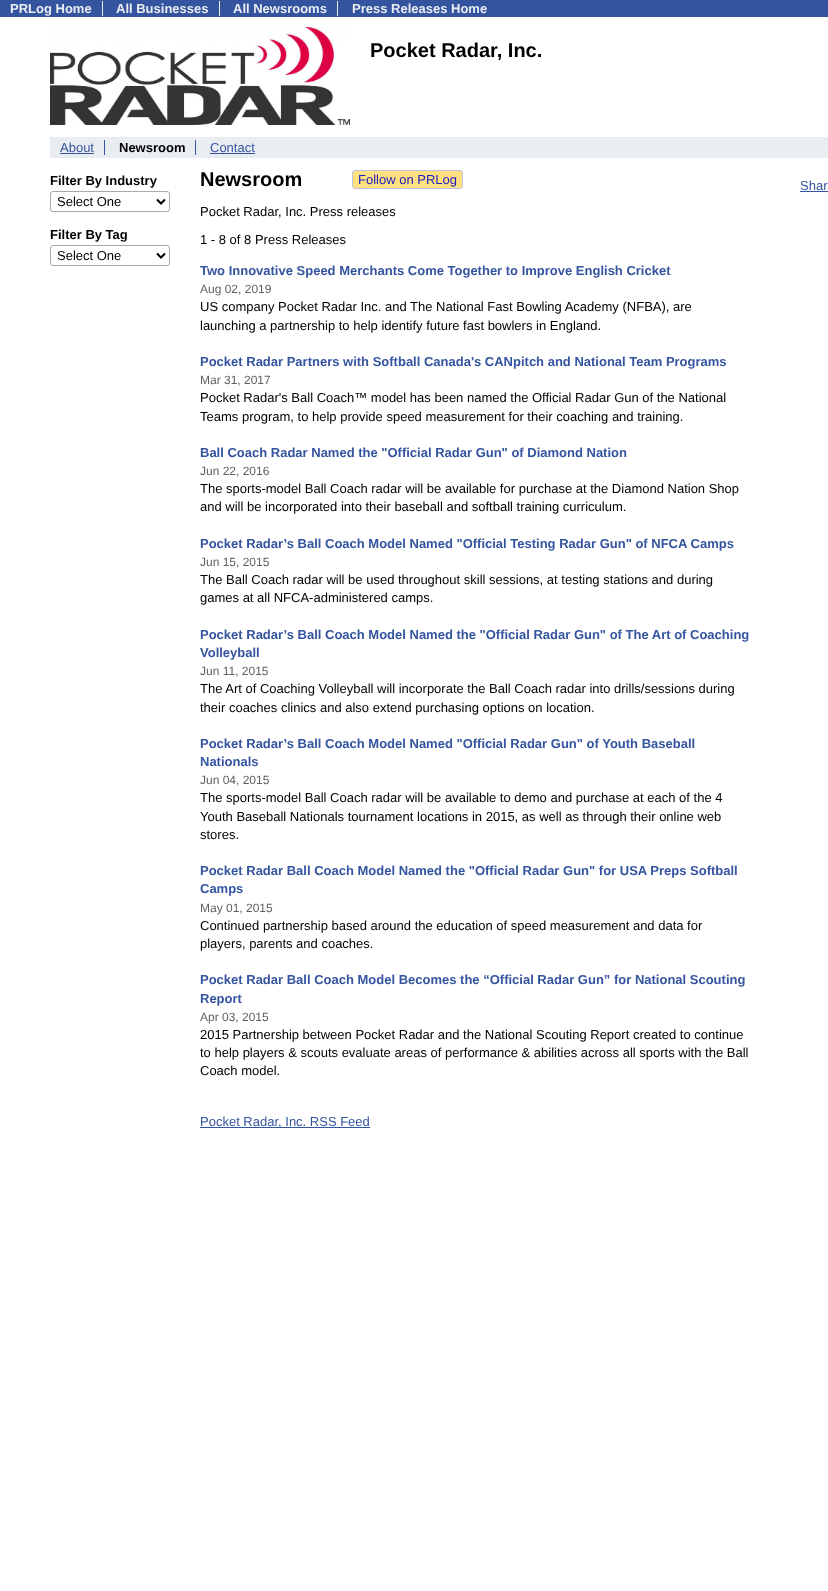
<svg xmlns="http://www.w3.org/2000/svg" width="828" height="1591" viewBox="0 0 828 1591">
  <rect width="100%" height="100%" fill="#ffffff"/>
  <rect x="0" y="0" width="828" height="17" fill="#3454a0"/>
  <rect x="102" y="1" width="1" height="15" fill="#e9edf2"/>
  <text x="10" y="13" font-family="Liberation Sans" font-size="13" font-weight="bold" fill="#e9edf2">PRLog Home</text>
  <rect x="219" y="1" width="1" height="15" fill="#e9edf2"/>
  <text x="116" y="13" font-family="Liberation Sans" font-size="13" font-weight="bold" fill="#e9edf2">All Businesses</text>
  <rect x="337" y="1" width="1" height="15" fill="#e9edf2"/>
  <text x="233" y="13" font-family="Liberation Sans" font-size="13" font-weight="bold" fill="#e9edf2">All Newsrooms</text>
  <text x="352" y="13" font-family="Liberation Sans" font-size="13" font-weight="bold" fill="#e9edf2">Press Releases Home</text>
  <image x="50" y="27" width="300" height="98" href="img1.png"/>
  <text x="370" y="57" font-family="Liberation Sans" font-size="20" font-weight="bold" fill="#000000">Pocket Radar, Inc.</text>
  <rect x="50" y="137" width="778" height="21" fill="#e9edf2"/>
  <rect x="104" y="140" width="1" height="15" fill="#3454a0"/>
  <text x="60" y="152" font-family="Liberation Sans" font-size="13" fill="#3454a0">About</text>
  <rect x="60" y="153" width="34" height="1" fill="#3454a0"/>
  <rect x="195" y="140" width="1" height="15" fill="#3454a0"/>
  <text x="119" y="152" font-family="Liberation Sans" font-size="13" font-weight="bold" fill="#000000">Newsroom</text>
  <text x="210" y="152" font-family="Liberation Sans" font-size="13" fill="#3454a0">Contact</text>
  <rect x="210" y="153" width="45" height="1" fill="#3454a0"/>
  <text x="50" y="185" font-family="Liberation Sans" font-size="13" font-weight="bold" fill="#000000">Filter By Industry</text>
  <rect x="50.5" y="191.5" width="119" height="20" rx="2.5" fill="none" stroke="#aaaaaa"/>
  <path d="M157 199.5L161 203.5L165 199.5" fill="none" stroke="#000000" stroke-width="2"/>
  <text x="57" y="206" font-family="Liberation Sans" font-size="13" fill="#000000">Select One</text>
  <text x="50" y="239" font-family="Liberation Sans" font-size="13" font-weight="bold" fill="#000000">Filter By Tag</text>
  <rect x="50.5" y="245.5" width="119" height="20" rx="2.5" fill="none" stroke="#aaaaaa"/>
  <path d="M157 253.5L161 257.5L165 253.5" fill="none" stroke="#000000" stroke-width="2"/>
  <text x="57" y="260" font-family="Liberation Sans" font-size="13" fill="#000000">Select One</text>
  <text x="200" y="186" font-family="Liberation Sans" font-size="20" font-weight="bold" fill="#000000">Newsroom</text>
  <rect x="352.5" y="170.5" width="110" height="18" rx="2.5" fill="#ffe080" stroke="#c0c0e0"/>
  <text x="358" y="184" font-family="Liberation Sans" font-size="13" fill="#2020c0">Follow on PRLog</text>
  <text x="200" y="216" font-family="Liberation Sans" font-size="13" fill="#000000">Pocket Radar, Inc. Press releases</text>
  <text x="200" y="244" font-family="Liberation Sans" font-size="13" fill="#000000">1 - 8 of 8 Press Releases</text>
  <text x="200" y="275" font-family="Liberation Sans" font-size="13" font-weight="bold" fill="#3454a0">Two Innovative Speed Merchants Come Together to Improve English Cricket</text>
  <text x="200" y="293" font-family="Liberation Sans" font-size="12" fill="#606060">Aug 02, 2019</text>
  <text x="200" y="311" font-family="Liberation Sans" font-size="13" fill="#000000">US company Pocket Radar Inc. and The National Fast Bowling Academy (NFBA), are</text>
  <text x="200" y="330" font-family="Liberation Sans" font-size="13" fill="#000000">launching a partnership to help identify future fast bowlers in England.</text>
  <text x="200" y="366" font-family="Liberation Sans" font-size="13" font-weight="bold" fill="#3454a0">Pocket Radar Partners with Softball Canada's CANpitch and National Team Programs</text>
  <text x="200" y="384" font-family="Liberation Sans" font-size="12" fill="#606060">Mar 31, 2017</text>
  <text x="200" y="402" font-family="Liberation Sans" font-size="13" fill="#000000">Pocket Radar's Ball Coach™ model has been named the Official Radar Gun of the National</text>
  <text x="200" y="421" font-family="Liberation Sans" font-size="13" fill="#000000">Teams program, to help provide speed measurement for their coaching and training.</text>
  <text x="200" y="457" font-family="Liberation Sans" font-size="13" font-weight="bold" fill="#3454a0">Ball Coach Radar Named the "Official Radar Gun" of Diamond Nation</text>
  <text x="200" y="475" font-family="Liberation Sans" font-size="12" fill="#606060">Jun 22, 2016</text>
  <text x="200" y="493" font-family="Liberation Sans" font-size="13" fill="#000000">The sports-model Ball Coach radar will be available for purchase at the Diamond Nation Shop</text>
  <text x="200" y="511" font-family="Liberation Sans" font-size="13" fill="#000000">and will be incorporated into their baseball and softball training curriculum.</text>
  <text x="200" y="548" font-family="Liberation Sans" font-size="13" font-weight="bold" fill="#3454a0">Pocket Radar’s Ball Coach Model Named "Official Testing Radar Gun" of NFCA Camps</text>
  <text x="200" y="566" font-family="Liberation Sans" font-size="12" fill="#606060">Jun 15, 2015</text>
  <text x="200" y="584" font-family="Liberation Sans" font-size="13" fill="#000000">The Ball Coach radar will be used throughout skill sessions, at testing stations and during</text>
  <text x="200" y="602" font-family="Liberation Sans" font-size="13" fill="#000000">games at all NFCA-administered camps.</text>
  <text x="200" y="639" font-family="Liberation Sans" font-size="13" font-weight="bold" fill="#3454a0">Pocket Radar’s Ball Coach Model Named the "Official Radar Gun" of The Art of Coaching</text>
  <text x="200" y="657" font-family="Liberation Sans" font-size="13" font-weight="bold" fill="#3454a0">Volleyball</text>
  <text x="200" y="675" font-family="Liberation Sans" font-size="12" fill="#606060">Jun 11, 2015</text>
  <text x="200" y="693" font-family="Liberation Sans" font-size="13" fill="#000000">The Art of Coaching Volleyball will incorporate the Ball Coach radar into drills/sessions during</text>
  <text x="200" y="712" font-family="Liberation Sans" font-size="13" fill="#000000">their coaches clinics and also extend purchasing options on location.</text>
  <text x="200" y="748" font-family="Liberation Sans" font-size="13" font-weight="bold" fill="#3454a0">Pocket Radar’s Ball Coach Model Named "Official Radar Gun" of Youth Baseball</text>
  <text x="200" y="766" font-family="Liberation Sans" font-size="13" font-weight="bold" fill="#3454a0">Nationals</text>
  <text x="200" y="784" font-family="Liberation Sans" font-size="12" fill="#606060">Jun 04, 2015</text>
  <text x="200" y="802" font-family="Liberation Sans" font-size="13" fill="#000000">The sports-model Ball Coach radar will be available to demo and purchase at each of the 4</text>
  <text x="200" y="821" font-family="Liberation Sans" font-size="13" fill="#000000">Youth Baseball Nationals tournament locations in 2015, as well as through their online web</text>
  <text x="200" y="839" font-family="Liberation Sans" font-size="13" fill="#000000">stores.</text>
  <text x="200" y="875" font-family="Liberation Sans" font-size="13" font-weight="bold" fill="#3454a0">Pocket Radar Ball Coach Model Named the "Official Radar Gun" for USA Preps Softball</text>
  <text x="200" y="893" font-family="Liberation Sans" font-size="13" font-weight="bold" fill="#3454a0">Camps</text>
  <text x="200" y="912" font-family="Liberation Sans" font-size="12" fill="#606060">May 01, 2015</text>
  <text x="200" y="930" font-family="Liberation Sans" font-size="13" fill="#000000">Continued partnership based around the education of speed measurement and data for</text>
  <text x="200" y="948" font-family="Liberation Sans" font-size="13" fill="#000000">players, parents and coaches.</text>
  <text x="200" y="984" font-family="Liberation Sans" font-size="13" font-weight="bold" fill="#3454a0">Pocket Radar Ball Coach Model Becomes the “Official Radar Gun” for National Scouting</text>
  <text x="200" y="1003" font-family="Liberation Sans" font-size="13" font-weight="bold" fill="#3454a0">Report</text>
  <text x="200" y="1021" font-family="Liberation Sans" font-size="12" fill="#606060">Apr 03, 2015</text>
  <text x="200" y="1039" font-family="Liberation Sans" font-size="13" fill="#000000">2015 Partnership between Pocket Radar and the National Scouting Report created to continue</text>
  <text x="200" y="1057" font-family="Liberation Sans" font-size="13" fill="#000000">to help players &amp; scouts evaluate areas of performance &amp; abilities across all sports with the Ball</text>
  <text x="200" y="1075" font-family="Liberation Sans" font-size="13" fill="#000000">Coach model.</text>
  <rect x="200" y="1127" width="170" height="1" fill="#3454a0"/>
  <text x="200" y="1126" font-family="Liberation Sans" font-size="13" fill="#3454a0">Pocket Radar, Inc. RSS Feed</text>
  <text x="800" y="190" font-family="Liberation Sans" font-size="13" fill="#3454a0">Shar</text>
  <rect x="800" y="191" width="28" height="1" fill="#3454a0"/>
</svg>
